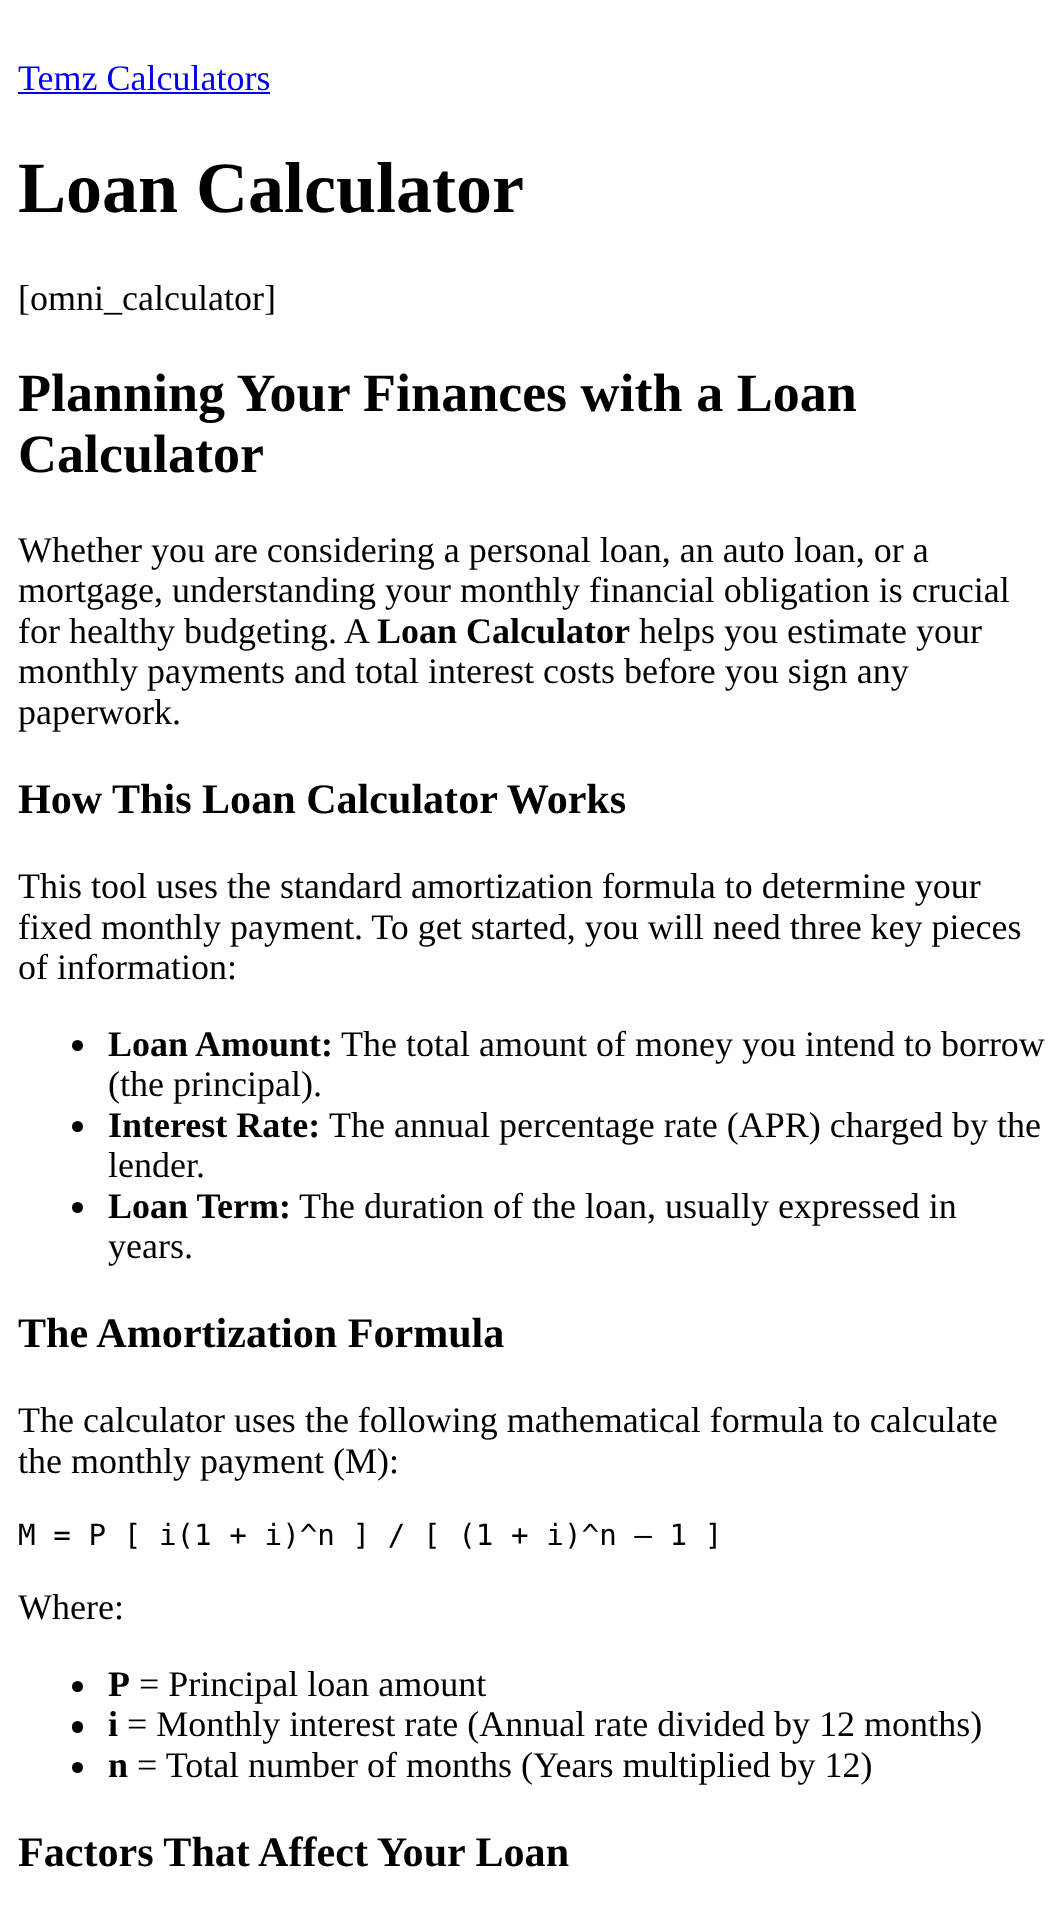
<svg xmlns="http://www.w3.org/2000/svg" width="1064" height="1911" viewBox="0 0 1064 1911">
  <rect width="100%" height="100%" fill="#ffffff"/>
  <text x="18" y="90" font-family="Liberation Serif" font-size="36" fill="#0000ee">Temz Calculators</text>
  <rect x="18" y="92" width="252" height="2" fill="#0000ee"/>
  <text x="18" y="212" font-family="Liberation Serif" font-size="72" font-weight="bold" fill="#000000">Loan Calculator</text>
  <text x="18" y="310" font-family="Liberation Serif" font-size="36" fill="#000000">[omni_calculator]</text>
  <text x="18" y="411" font-family="Liberation Serif" font-size="54" font-weight="bold" fill="#000000">Planning Your Finances with a Loan</text>
  <text x="18" y="472" font-family="Liberation Serif" font-size="54" font-weight="bold" fill="#000000">Calculator</text>
  <text x="18" y="562" font-family="Liberation Serif" font-size="36" fill="#000000">Whether you are considering a personal loan, an auto loan, or a</text>
  <text x="18" y="602" font-family="Liberation Serif" font-size="36" fill="#000000">mortgage, understanding your monthly financial obligation is crucial</text>
  <text x="18" y="643" font-family="Liberation Serif" font-size="36" fill="#000000">for healthy budgeting. A</text>
  <text x="377" y="643" font-family="Liberation Serif" font-size="36" font-weight="bold" fill="#000000">Loan Calculator</text>
  <text x="639" y="643" font-family="Liberation Serif" font-size="36" fill="#000000">helps you estimate your</text>
  <text x="18" y="683" font-family="Liberation Serif" font-size="36" fill="#000000">monthly payments and total interest costs before you sign any</text>
  <text x="18" y="724" font-family="Liberation Serif" font-size="36" fill="#000000">paperwork.</text>
  <text x="18" y="813" font-family="Liberation Serif" font-size="42.1" font-weight="bold" fill="#000000">How This Loan Calculator Works</text>
  <text x="18" y="898" font-family="Liberation Serif" font-size="36" fill="#000000">This tool uses the standard amortization formula to determine your</text>
  <text x="18" y="939" font-family="Liberation Serif" font-size="36" fill="#000000">fixed monthly payment. To get started, you will need three key pieces</text>
  <text x="18" y="979" font-family="Liberation Serif" font-size="36" fill="#000000">of information:</text>
  <circle cx="77.5" cy="1045.5" r="5.5" fill="#000000"/>
  <text x="108" y="1056" font-family="Liberation Serif" font-size="36" font-weight="bold" fill="#000000">Loan Amount:</text>
  <text x="341" y="1056" font-family="Liberation Serif" font-size="36" fill="#000000">The total amount of money you intend to borrow</text>
  <text x="108" y="1096" font-family="Liberation Serif" font-size="36" fill="#000000">(the principal).</text>
  <circle cx="77.5" cy="1126.5" r="5.5" fill="#000000"/>
  <text x="108" y="1137" font-family="Liberation Serif" font-size="36" font-weight="bold" fill="#000000">Interest Rate:</text>
  <text x="329" y="1137" font-family="Liberation Serif" font-size="36" fill="#000000">The annual percentage rate (APR) charged by the</text>
  <text x="108" y="1177" font-family="Liberation Serif" font-size="36" fill="#000000">lender.</text>
  <circle cx="77.5" cy="1207.5" r="5.5" fill="#000000"/>
  <text x="108" y="1218" font-family="Liberation Serif" font-size="36" font-weight="bold" fill="#000000">Loan Term:</text>
  <text x="299" y="1218" font-family="Liberation Serif" font-size="36" fill="#000000">The duration of the loan, usually expressed in</text>
  <text x="108" y="1258" font-family="Liberation Serif" font-size="36" fill="#000000">years.</text>
  <text x="18" y="1347" font-family="Liberation Serif" font-size="42.1" font-weight="bold" fill="#000000">The Amortization Formula</text>
  <text x="18" y="1432" font-family="Liberation Serif" font-size="36" fill="#000000">The calculator uses the following mathematical formula to calculate</text>
  <text x="18" y="1473" font-family="Liberation Serif" font-size="36" fill="#000000">the monthly payment (M):</text>
  <text x="18" y="1545" font-family="DejaVu Sans Mono" font-size="29.25" fill="#000000">M = P [ i(1 + i)^n ] / [ (1 + i)^n – 1 ]</text>
  <text x="18" y="1619" font-family="Liberation Serif" font-size="36" fill="#000000">Where:</text>
  <circle cx="77.5" cy="1686.5" r="5.5" fill="#000000"/>
  <text x="108" y="1696" font-family="Liberation Serif" font-size="36" font-weight="bold" fill="#000000">P</text>
  <text x="139" y="1696" font-family="Liberation Serif" font-size="36" fill="#000000">= Principal loan amount</text>
  <rect x="72" y="1721" width="11" height="12" rx="5.5" fill="#000000"/>
  <text x="108" y="1736" font-family="Liberation Serif" font-size="36" font-weight="bold" fill="#000000">i</text>
  <text x="127" y="1736" font-family="Liberation Serif" font-size="36" fill="#000000">= Monthly interest rate (Annual rate divided by 12 months)</text>
  <circle cx="77.5" cy="1767.5" r="5.5" fill="#000000"/>
  <text x="108" y="1777" font-family="Liberation Serif" font-size="36" font-weight="bold" fill="#000000">n</text>
  <text x="137" y="1777" font-family="Liberation Serif" font-size="36" fill="#000000">= Total number of months (Years multiplied by 12)</text>
  <text x="18" y="1866" font-family="Liberation Serif" font-size="42.1" font-weight="bold" fill="#000000">Factors That Affect Your Loan</text>
</svg>
